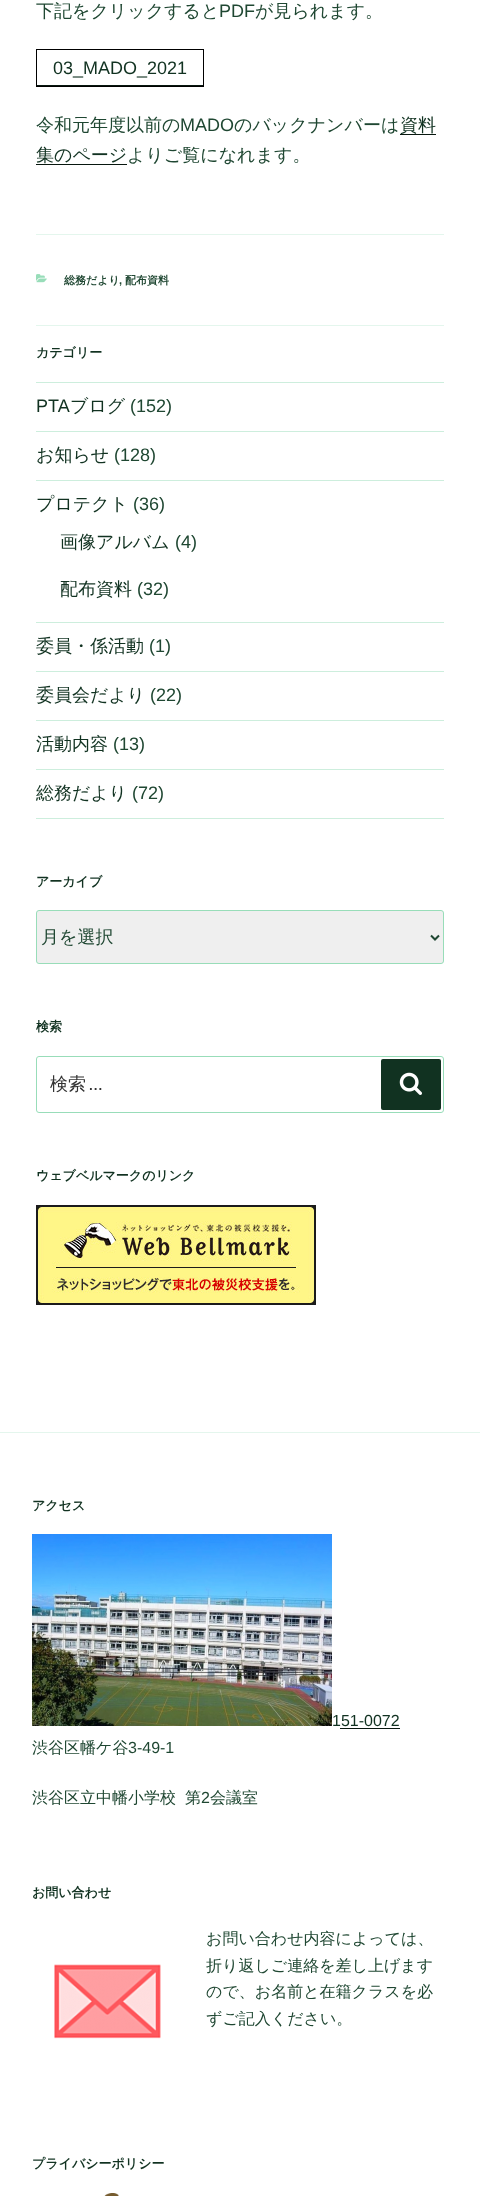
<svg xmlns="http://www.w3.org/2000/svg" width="480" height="2196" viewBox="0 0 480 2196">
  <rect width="100%" height="100%" fill="#ffffff"/>
  <text x="36" y="17" font-family="WenQuanYi Zen Hei" font-size="18" font-weight="500" fill="#1f4732">下記をクリックすると</text>
  <text x="219" y="17" font-family="Liberation Sans" font-size="18" fill="#1f4732">PDF</text>
  <text x="255" y="17" font-family="WenQuanYi Zen Hei" font-size="18" font-weight="500" fill="#1f4732">が見られます。</text>
  <rect x="37" y="85" width="166" height="1" fill="#08170f"/>
  <rect x="36.5" y="49.5" width="167" height="37" fill="none" stroke="#000000"/>
  <text x="53" y="74" font-family="Liberation Sans" font-size="18" fill="#113221">03_MADO_2021</text>
  <text x="36" y="131" font-family="WenQuanYi Zen Hei" font-size="18" font-weight="500" fill="#1f4732">令和元年度以前の</text>
  <text x="180" y="131" font-family="Liberation Sans" font-size="18" fill="#1f4732">MADO</text>
  <text x="234" y="131" font-family="WenQuanYi Zen Hei" font-size="18" font-weight="500" fill="#1f4732">のバックナンバーは</text>
  <rect x="400" y="134" width="36" height="1" fill="#08170f"/>
  <text x="400" y="131" font-family="WenQuanYi Zen Hei" font-size="18" font-weight="500" fill="#113221">資料</text>
  <text x="36" y="161" font-family="WenQuanYi Zen Hei" font-size="18" font-weight="500" fill="#113221">集のページ</text>
  <rect x="36" y="164" width="91" height="1" fill="#08170f"/>
  <text x="127" y="161" font-family="WenQuanYi Zen Hei" font-size="18" font-weight="500" fill="#1f4732">よりご覧になれます。</text>
  <rect x="36" y="234" width="408" height="1" fill="#e4f6ed"/>
  <rect x="36" y="325" width="408" height="1" fill="#e4f6ed"/>
  <image x="36" y="274" width="11" height="9" href="img1.png"/>
  <text x="64" y="284" font-family="WenQuanYi Zen Hei" font-size="11" font-weight="bold" fill="#1f4732">総務だより</text>
  <text x="119" y="284" font-family="Liberation Sans" font-size="11" font-weight="bold" fill="#1f4732">,</text>
  <text x="125" y="284" font-family="WenQuanYi Zen Hei" font-size="11" font-weight="bold" fill="#1f4732">配布資料</text>
  <text x="36" y="357" font-family="WenQuanYi Zen Hei" font-size="13" font-weight="bold" fill="#113221">カテゴリー</text>
  <rect x="36" y="382" width="408" height="1" fill="#cdeedd"/>
  <rect x="36" y="431" width="408" height="1" fill="#cdeedd"/>
  <text x="36" y="412" font-family="Liberation Sans" font-size="18" fill="#113221">PTA</text>
  <text x="70" y="412" font-family="WenQuanYi Zen Hei" font-size="18" font-weight="500" fill="#113221">ブログ</text>
  <text x="130" y="412" font-family="Liberation Sans" font-size="18" fill="#1f4732">(152)</text>
  <rect x="36" y="480" width="408" height="1" fill="#cdeedd"/>
  <text x="36" y="461" font-family="WenQuanYi Zen Hei" font-size="18" font-weight="500" fill="#113221">お知らせ</text>
  <text x="114" y="461" font-family="Liberation Sans" font-size="18" fill="#1f4732">(128)</text>
  <rect x="36" y="622" width="408" height="1" fill="#cdeedd"/>
  <text x="36" y="510" font-family="WenQuanYi Zen Hei" font-size="18" font-weight="500" fill="#113221">プロテクト</text>
  <text x="133" y="510" font-family="Liberation Sans" font-size="18" fill="#1f4732">(36)</text>
  <text x="60" y="548" font-family="WenQuanYi Zen Hei" font-size="18" font-weight="500" fill="#113221">画像アルバム</text>
  <text x="175" y="548" font-family="Liberation Sans" font-size="18" fill="#1f4732">(4)</text>
  <text x="60" y="595" font-family="WenQuanYi Zen Hei" font-size="18" font-weight="500" fill="#113221">配布資料</text>
  <text x="137" y="595" font-family="Liberation Sans" font-size="18" fill="#1f4732">(32)</text>
  <rect x="36" y="671" width="408" height="1" fill="#cdeedd"/>
  <text x="36" y="652" font-family="WenQuanYi Zen Hei" font-size="18" font-weight="500" fill="#113221">委員・係活動</text>
  <text x="149" y="652" font-family="Liberation Sans" font-size="18" fill="#1f4732">(1)</text>
  <rect x="36" y="720" width="408" height="1" fill="#cdeedd"/>
  <text x="36" y="701" font-family="WenQuanYi Zen Hei" font-size="18" font-weight="500" fill="#113221">委員会だより</text>
  <text x="150" y="701" font-family="Liberation Sans" font-size="18" fill="#1f4732">(22)</text>
  <rect x="36" y="769" width="408" height="1" fill="#cdeedd"/>
  <text x="36" y="750" font-family="WenQuanYi Zen Hei" font-size="18" font-weight="500" fill="#113221">活動内容</text>
  <text x="113" y="750" font-family="Liberation Sans" font-size="18" fill="#1f4732">(13)</text>
  <rect x="36" y="818" width="408" height="1" fill="#cdeedd"/>
  <text x="36" y="799" font-family="WenQuanYi Zen Hei" font-size="18" font-weight="500" fill="#113221">総務だより</text>
  <text x="132" y="799" font-family="Liberation Sans" font-size="18" fill="#1f4732">(72)</text>
  <text x="36" y="886" font-family="WenQuanYi Zen Hei" font-size="13" font-weight="bold" fill="#113221">アーカイブ</text>
  <rect x="36.5" y="910.5" width="407" height="53" rx="2.5" fill="#efefef" stroke="#98ddb9"/>
  <path d="M431 935.5L435 939.5L439 935.5" fill="none" stroke="#1f4732" stroke-width="2"/>
  <text x="41" y="943" font-family="WenQuanYi Zen Hei" font-size="18" font-weight="500" fill="#1f4732">月を選択</text>
  <text x="36" y="1031" font-family="WenQuanYi Zen Hei" font-size="13" font-weight="bold" fill="#113221">検索</text>
  <rect x="36.5" y="1056.5" width="407" height="56" rx="2.5" fill="none" stroke="#98ddb9"/>
  <text x="50" y="1090" font-family="WenQuanYi Zen Hei" font-size="18" font-weight="500" fill="#333333">検索</text>
  <text x="89" y="1090" font-family="Libre Franklin" font-size="18" fill="#333333">…</text>
  <rect x="381" y="1059" width="60" height="51" rx="2" fill="#113221"/>
  <image x="399" y="1072" width="23" height="23" href="img2.png"/>
  <text x="36" y="1180" font-family="WenQuanYi Zen Hei" font-size="13" font-weight="bold" fill="#113221">ウェブベルマークのリンク</text>
  <image x="36" y="1205" width="280" height="100" href="img3.png"/>
  <rect x="0" y="1432" width="480" height="1" fill="#e4f6ed"/>
  <text x="32" y="1510" font-family="WenQuanYi Zen Hei" font-size="13" font-weight="bold" fill="#113221">アクセス</text>
  <rect x="332" y="1728" width="68" height="1" fill="#08170f"/>
  <rect x="28" y="1530" width="308" height="200" fill="none" stroke="#ffffff" stroke-width="8"/>
  <image x="32" y="1534" width="300" height="192" href="img4.png"/>
  <text x="332" y="1726" font-family="Liberation Sans" font-size="16" fill="#113221">151-0072</text>
  <text x="32" y="1753" font-family="WenQuanYi Zen Hei" font-size="16" font-weight="500" fill="#1f4732">渋谷区幡ケ谷</text>
  <text x="128" y="1753" font-family="Liberation Sans" font-size="16" fill="#1f4732">3-49-1</text>
  <text x="32" y="1803" font-family="WenQuanYi Zen Hei" font-size="16" font-weight="500" fill="#1f4732">渋谷区立中幡小学校</text>
  <text x="185" y="1803" font-family="WenQuanYi Zen Hei" font-size="16" font-weight="500" fill="#1f4732">第</text>
  <text x="201" y="1803" font-family="Liberation Sans" font-size="16" fill="#1f4732">2</text>
  <text x="210" y="1803" font-family="WenQuanYi Zen Hei" font-size="16" font-weight="500" fill="#1f4732">会議室</text>
  <text x="32" y="1897" font-family="WenQuanYi Zen Hei" font-size="13" font-weight="bold" fill="#113221">お問い合わせ</text>
  <image x="54" y="1964" width="107" height="75" href="img5.png"/>
  <text x="206" y="1944" font-family="WenQuanYi Zen Hei" font-size="16" font-weight="500" fill="#1f4732">お問い合わせ内容によっては、</text>
  <text x="206" y="1971" font-family="WenQuanYi Zen Hei" font-size="16" font-weight="500" fill="#1f4732">折り返しご連絡を差し上げます</text>
  <text x="206" y="1997" font-family="WenQuanYi Zen Hei" font-size="16" font-weight="500" fill="#1f4732">ので、お名前と在籍クラスを必</text>
  <text x="206" y="2024" font-family="WenQuanYi Zen Hei" font-size="16" font-weight="500" fill="#1f4732">ずご記入ください。</text>
  <text x="32" y="2168" font-family="WenQuanYi Zen Hei" font-size="13" font-weight="bold" fill="#113221">プライバシーポリシー</text>
  <image x="104" y="2193" width="15" height="3" href="img6.png"/>
</svg>
